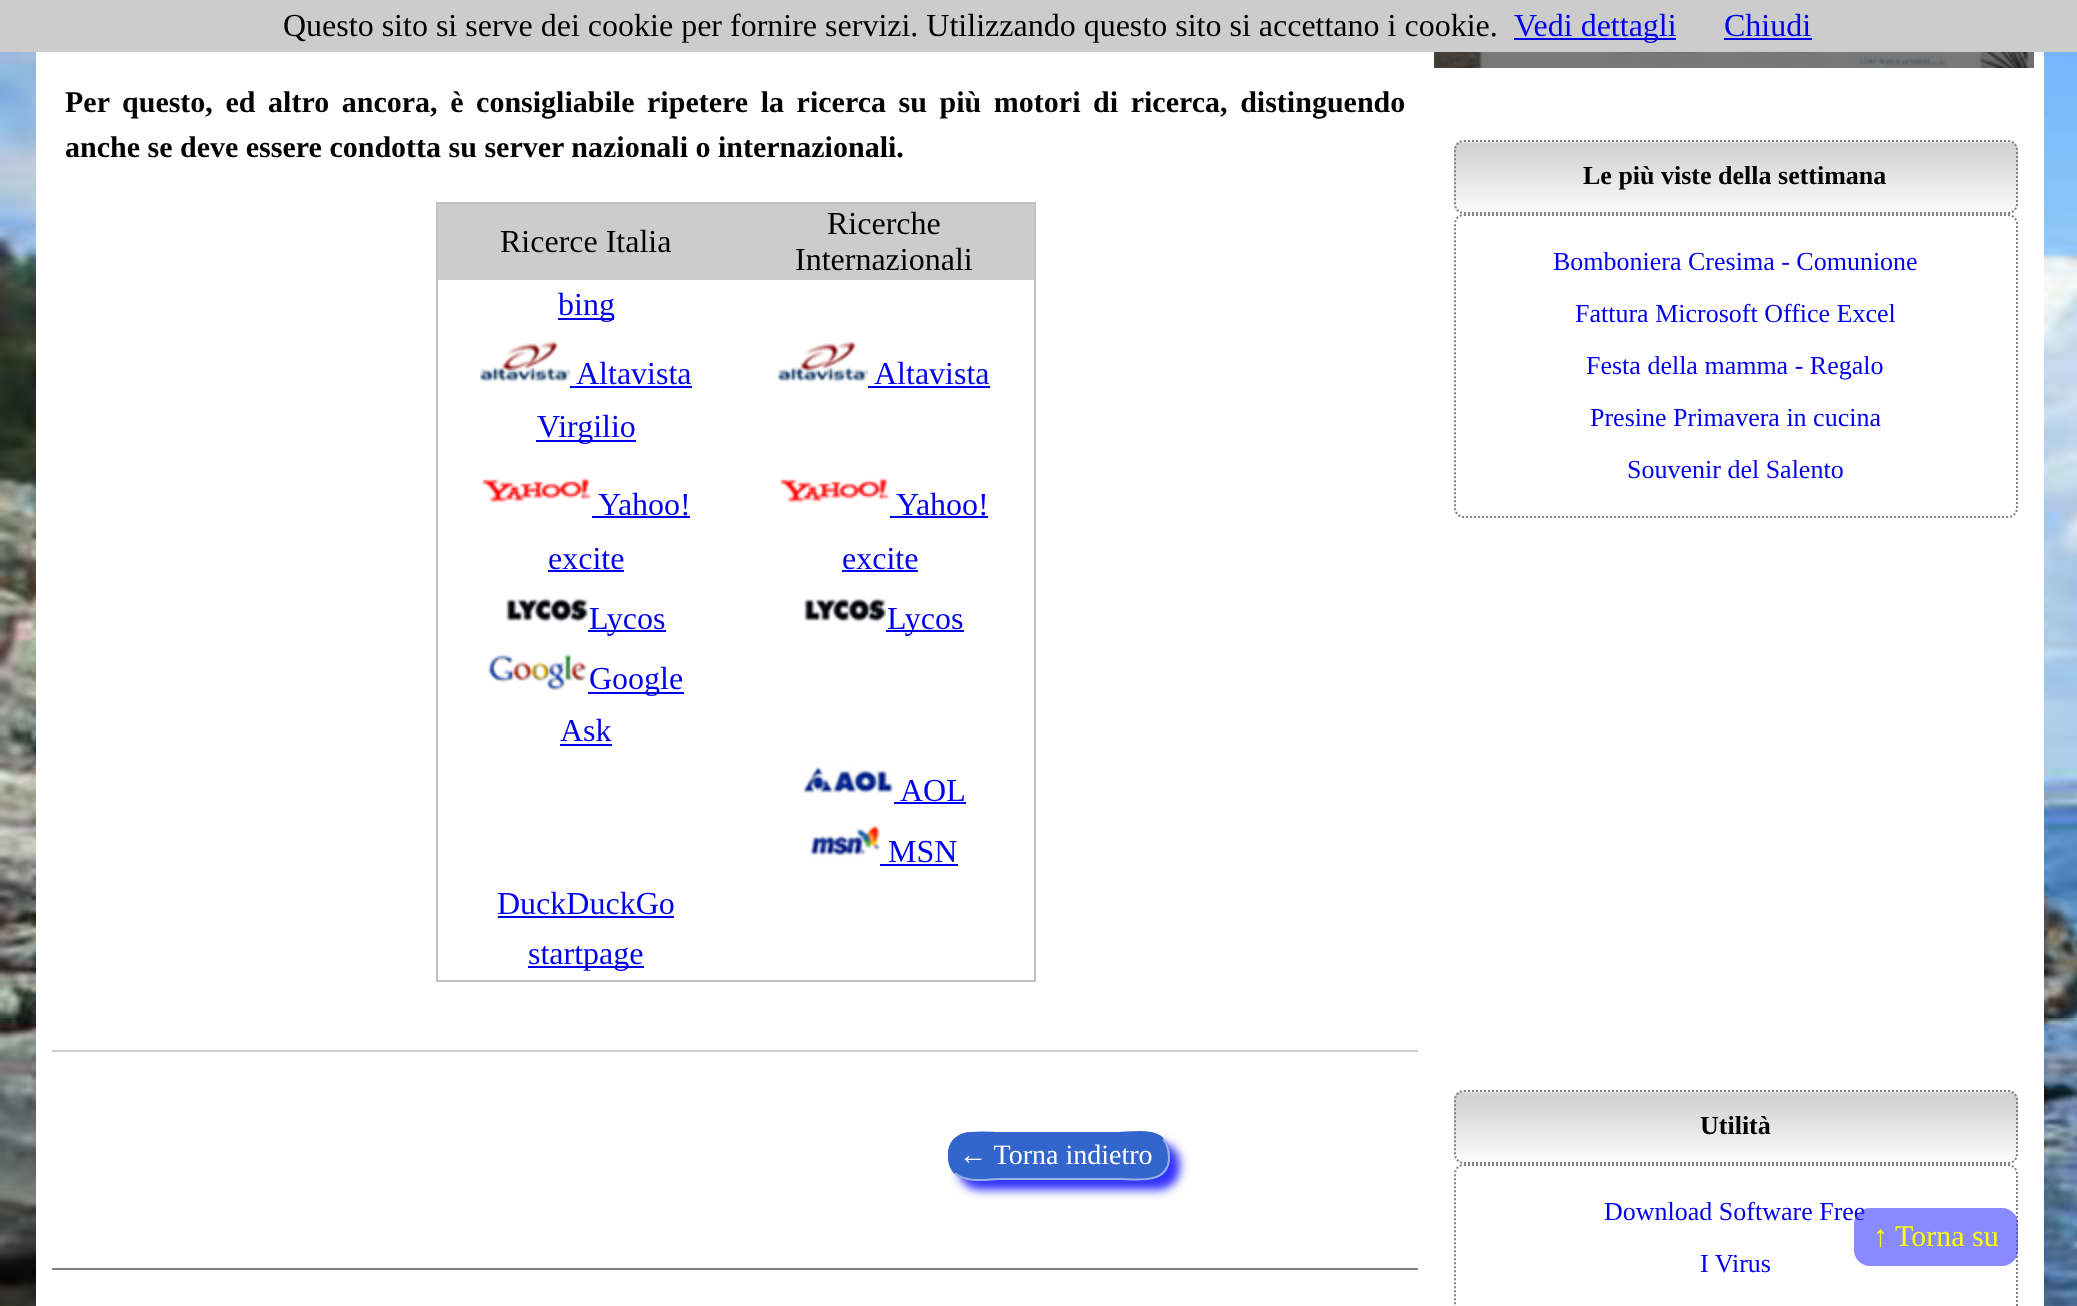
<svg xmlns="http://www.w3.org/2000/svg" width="2077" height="1306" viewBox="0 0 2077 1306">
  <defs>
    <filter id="blur1" x="-50%" y="-200%" width="200%" height="500%"><feGaussianBlur stdDeviation="5"/></filter>
  </defs>
  <rect width="100%" height="100%" fill="#ffffff"/>
  <image x="0" y="52" width="2077" height="1254" href="img1.png"/>
  <rect x="0" y="0" width="2077" height="52" fill="#cccccc"/>
  <text x="283" y="36" font-family="Liberation Serif" font-size="32" fill="#000000">Questo sito si serve dei cookie per fornire servizi. Utilizzando questo sito si accettano i cookie.</text>
  <rect x="1514" y="38" width="162" height="2" fill="#0000ee"/>
  <text x="1514" y="36" font-family="Liberation Serif" font-size="32" fill="#0000ee">Vedi dettagli</text>
  <text x="1724" y="36" font-family="Liberation Serif" font-size="32" fill="#0000ee">Chiudi</text>
  <rect x="1724" y="38" width="88" height="2" fill="#0000ee"/>
  <rect x="36" y="52" width="2008" height="1254" fill="#ffffff"/>
  <text x="65" y="112" word-spacing="5.1" font-family="Liberation Serif" font-size="30" font-weight="bold" fill="#000000">Per questo, ed altro ancora, è consigliabile ripetere la ricerca su più motori di ricerca, distinguendo</text>
  <text x="65" y="157" font-family="Liberation Serif" font-size="30" font-weight="bold" fill="#000000">anche se deve essere condotta su server nazionali o internazionali.</text>
  <rect x="436" y="202" width="600" height="2" fill="#c0c0c0"/>
  <rect x="1034" y="202" width="2" height="780" fill="#c0c0c0"/>
  <rect x="436" y="980" width="600" height="2" fill="#c0c0c0"/>
  <rect x="436" y="202" width="2" height="780" fill="#c0c0c0"/>
  <rect x="438" y="204" width="596" height="76" fill="#cccccc"/>
  <text x="500" y="252" font-family="Liberation Serif" font-size="32" fill="#000000">Ricerce Italia</text>
  <text x="827" y="234" font-family="Liberation Serif" font-size="32" fill="#000000">Ricerche</text>
  <text x="795" y="270" font-family="Liberation Serif" font-size="32" fill="#000000">Internazionali</text>
  <rect x="558" y="318" width="56" height="2" fill="#0000ee"/>
  <text x="558" y="315" font-family="Liberation Serif" font-size="32" fill="#0000ee">bing</text>
  <image x="480" y="341" width="90" height="42" href="img2.png"/>
  <text x="576" y="384" font-family="Liberation Serif" font-size="32" fill="#0000ee">Altavista</text>
  <rect x="570" y="386" width="122" height="2" fill="#0000ee"/>
  <image x="778" y="341" width="90" height="42" href="img2.png"/>
  <text x="874" y="384" font-family="Liberation Serif" font-size="32" fill="#0000ee">Altavista</text>
  <rect x="868" y="386" width="122" height="2" fill="#0000ee"/>
  <rect x="536" y="440" width="100" height="2" fill="#0000ee"/>
  <text x="537" y="437" font-family="Liberation Serif" font-size="32" fill="#0000ee">Virgilio</text>
  <image x="482" y="477" width="110" height="26" href="img3.png"/>
  <text x="598" y="515" font-family="Liberation Serif" font-size="32" fill="#0000ee">Yahoo!</text>
  <rect x="592" y="516" width="98" height="2" fill="#0000ee"/>
  <image x="780" y="477" width="110" height="26" href="img3.png"/>
  <text x="896" y="515" font-family="Liberation Serif" font-size="32" fill="#0000ee">Yahoo!</text>
  <rect x="890" y="516" width="98" height="2" fill="#0000ee"/>
  <text x="548" y="569" font-family="Liberation Serif" font-size="32" fill="#0000ee">excite</text>
  <rect x="548" y="570" width="76" height="2" fill="#0000ee"/>
  <text x="842" y="569" font-family="Liberation Serif" font-size="32" fill="#0000ee">excite</text>
  <rect x="842" y="570" width="76" height="2" fill="#0000ee"/>
  <image x="506" y="597" width="82" height="26" href="img4.png"/>
  <rect x="588" y="630" width="78" height="2" fill="#0000ee"/>
  <text x="589" y="629" font-family="Liberation Serif" font-size="32" fill="#0000ee">Lycos</text>
  <image x="804" y="597" width="82" height="26" href="img4.png"/>
  <rect x="886" y="630" width="78" height="2" fill="#0000ee"/>
  <text x="887" y="629" font-family="Liberation Serif" font-size="32" fill="#0000ee">Lycos</text>
  <image x="488" y="654" width="99" height="36" href="img5.png"/>
  <rect x="588" y="692" width="96" height="2" fill="#0000ee"/>
  <text x="589" y="689" font-family="Liberation Serif" font-size="32" fill="#0000ee">Google</text>
  <text x="560" y="741" font-family="Liberation Serif" font-size="32" fill="#0000ee">Ask</text>
  <rect x="560" y="744" width="52" height="2" fill="#0000ee"/>
  <image x="802" y="766" width="92" height="28" href="img6.png"/>
  <text x="900" y="801" font-family="Liberation Serif" font-size="32" fill="#0000ee">AOL</text>
  <rect x="894" y="802" width="72" height="2" fill="#0000ee"/>
  <image x="810" y="826" width="70" height="31" href="img7.png"/>
  <text x="888" y="862" font-family="Liberation Serif" font-size="32" fill="#0000ee">MSN</text>
  <rect x="880" y="864" width="78" height="2" fill="#0000ee"/>
  <text x="497" y="914" font-family="Liberation Serif" font-size="32" fill="#0000ee">DuckDuckGo</text>
  <rect x="498" y="916" width="176" height="2" fill="#0000ee"/>
  <rect x="528" y="966" width="116" height="2" fill="#0000ee"/>
  <text x="528" y="964" font-family="Liberation Serif" font-size="32" fill="#0000ee">startpage</text>
  <rect x="52" y="1050" width="1366" height="2" fill="#cccccc"/>
  <rect x="52" y="1268" width="1366" height="2" fill="#808080"/>
  <rect x="958" y="1142" width="222" height="48" rx="22" fill="#3333ff" filter="url(#blur1)"/>
  <rect x="948" y="1132" width="222" height="48" rx="22" fill="#3366cc"/>
  <path d="M1163 1139C1168 1144.5 1169 1151 1169 1158C1168.5 1185 1135.5 1179 1118.5 1179H999.5C988.5 1179 966 1183.5 955 1173" fill="none" stroke="#99b1e6" stroke-width="2"/>
  <path d="M955 1173C950 1167.5 949 1161 949 1154C949.5 1127 982.5 1133 999.5 1133H1118.5C1129.5 1133 1152 1128.5 1163 1139" fill="none" stroke="#3366cc" stroke-width="2"/>
  <text x="959" y="1164" font-family="Liberation Serif" font-size="28" fill="#ffffff">← Torna indietro</text>
  <image x="1434" y="52" width="600" height="16" href="img8.png"/>
  <rect x="1434" y="52" width="600" height="16" fill="#1e1e1e" fill-opacity="0.6"/>
  <rect x="1454" y="140" width="564" height="74" rx="10" fill="#f0f0f0"/>
  <image x="1454" y="140" width="564" height="74" href="img9.png"/>
  <path d="M1464 141H2008C2013 141 2017 145 2017 150V204C2017 209 2013 213 2008 213H1464C1459 213 1455 209 1455 204V150C1455 145 1459 141 1464 141Z" fill="none" stroke="#808080" stroke-width="2" stroke-dasharray="2 2"/>
  <text x="1583" y="184" font-family="Liberation Serif" font-size="26" font-weight="bold" fill="#000000">Le più viste della settimana</text>
  <path d="M1464 215H2008C2013 215 2017 219 2017 224V508C2017 513 2013 517 2008 517H1464C1459 517 1455 513 1455 508V224C1455 219 1459 215 1464 215Z" fill="none" stroke="#808080" stroke-width="2" stroke-dasharray="2 2"/>
  <text x="1553" y="270" font-family="Liberation Serif" font-size="26" fill="#0000ee">Bomboniera Cresima - Comunione</text>
  <text x="1575" y="322" font-family="Liberation Serif" font-size="26" fill="#0000ee">Fattura Microsoft Office Excel</text>
  <text x="1586" y="374" font-family="Liberation Serif" font-size="26" fill="#0000ee">Festa della mamma - Regalo</text>
  <text x="1590" y="426" font-family="Liberation Serif" font-size="26" fill="#0000ee">Presine Primavera in cucina</text>
  <text x="1627" y="478" font-family="Liberation Serif" font-size="26" fill="#0000ee">Souvenir del Salento</text>
  <rect x="1454" y="1090" width="564" height="74" rx="10" fill="#f0f0f0"/>
  <image x="1454" y="1090" width="564" height="74" href="img9.png"/>
  <path d="M1464 1091H2008C2013 1091 2017 1095 2017 1100V1154C2017 1159 2013 1163 2008 1163H1464C1459 1163 1455 1159 1455 1154V1100C1455 1095 1459 1091 1464 1091Z" fill="none" stroke="#808080" stroke-width="2" stroke-dasharray="2 2"/>
  <text x="1700" y="1134" font-family="Liberation Serif" font-size="26" font-weight="bold" fill="#000000">Utilità</text>
  <path d="M1464 1165H2008C2013 1165 2017 1169 2017 1174V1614C2017 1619 2013 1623 2008 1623H1464C1459 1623 1455 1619 1455 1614V1174C1455 1169 1459 1165 1464 1165Z" fill="none" stroke="#808080" stroke-width="2" stroke-dasharray="2 2"/>
  <text x="1604" y="1220" font-family="Liberation Serif" font-size="26" fill="#0000ee">Download Software Free</text>
  <text x="1700" y="1272" font-family="Liberation Serif" font-size="26" fill="#0000ee">I Virus</text>
  <rect x="1854" y="1208" width="164" height="58" rx="16" fill="#3c3cff" fill-opacity="0.6"/>
  <text x="1873" y="1246" font-family="Liberation Serif" font-size="30" fill="#ffff00">↑ Torna su</text>
</svg>
